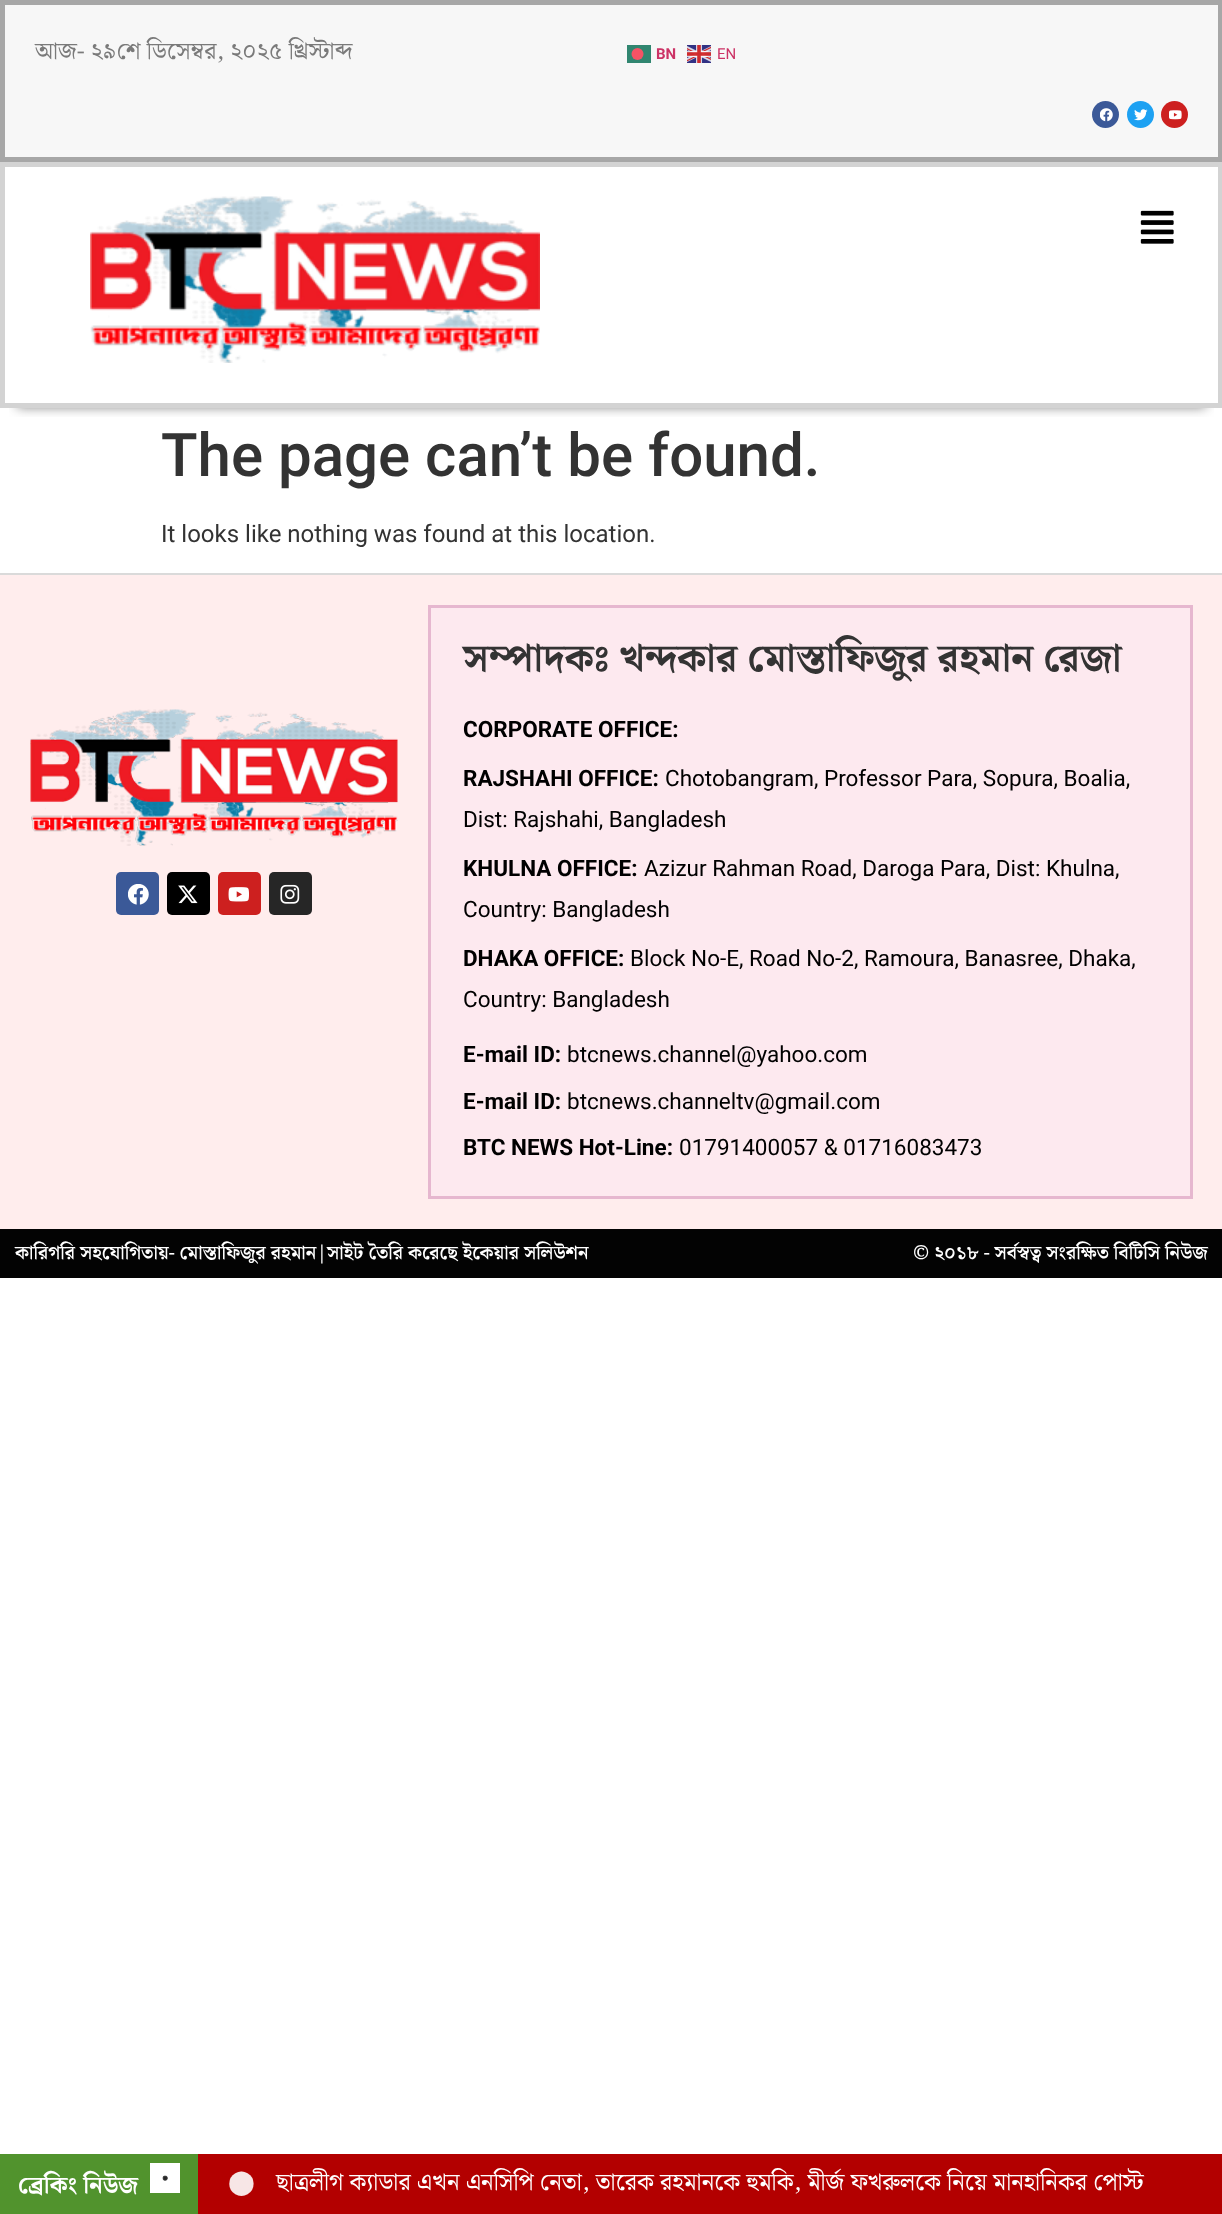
<svg xmlns="http://www.w3.org/2000/svg" width="1222" height="2214" viewBox="0 0 1222 2214">
  <defs>
    <clipPath id="clip1"><rect x="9" y="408" width="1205" height="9"/></clipPath>
    <filter id="blur1" x="-50%" y="-200%" width="200%" height="500%"><feGaussianBlur stdDeviation="6"/></filter>
  </defs>
  <rect width="100%" height="100%" fill="#ffffff"/>
  <rect x="2.5" y="2.5" width="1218" height="157" fill="#f7f7f7" stroke="#a7a7a7" stroke-width="5"/>
  <text x="35" y="59" font-family="Noto Serif Bengali" font-size="24" fill="#7a7a7a">আজ- ২৯শে ডিসেম্বর, ২০২৫ খ্রিস্টাব্দ</text>
  <text x="656" y="59" font-family="Roboto" font-size="15" font-weight="bold" fill="#cc3366">BN</text>
  <rect x="627" y="45" width="24" height="18" fill="#318670"/>
  <circle cx="637.5" cy="54" r="6" fill="#f55365"/>
  <image x="687" y="45" width="24" height="18" href="img1.png"/>
  <text x="717" y="59" font-family="Roboto" font-size="15" fill="#cc3366">EN</text>
  <circle cx="1105.5" cy="114.5" r="13.5" fill="#3b5998"/>
  <image x="1100" y="108" width="13" height="14" href="img2.png"/>
  <circle cx="1140.5" cy="114.5" r="13.5" fill="#1da1f2"/>
  <image x="1134" y="109" width="14" height="12" href="img3.png"/>
  <circle cx="1174.5" cy="114.5" r="13.5" fill="#cd201f"/>
  <image x="1169" y="110" width="13" height="10" href="img4.png"/>
  <g clip-path="url(#clip1)">
    <rect x="17" y="194" width="1189" height="213" fill="#000000" fill-opacity="0.5" filter="url(#blur1)"/>
  </g>
  <rect x="2.5" y="164.5" width="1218" height="241" fill="none" stroke="#d3d3d3" stroke-width="5"/>
  <image x="90" y="196" width="450" height="167" href="img5.png"/>
  <image x="1140" y="210" width="34" height="34" href="img6.png"/>
  <text x="161" y="476" font-family="Roboto" font-size="60" font-weight="500" fill="#333333">The page can’t be found.</text>
  <text x="161" y="542" font-family="Roboto" font-size="24" fill="#333333">It looks like nothing was found at this location.</text>
  <rect x="0" y="575" width="1222" height="654" fill="#ffeded"/>
  <rect x="0" y="573" width="1222" height="2" fill="#dadada"/>
  <image x="30" y="709" width="368" height="137" href="img7.png"/>
  <rect x="116" y="872" width="43" height="43" rx="5" fill="#3b5998"/>
  <image x="128" y="884" width="21" height="21" href="img8.png"/>
  <rect x="167" y="872" width="43" height="43" rx="5" fill="#000000"/>
  <image x="178" y="885" width="20" height="19" href="img9.png"/>
  <rect x="218" y="872" width="43" height="43" rx="5" fill="#cd201f"/>
  <image x="228" y="887" width="21" height="15" href="img10.png"/>
  <rect x="269" y="872" width="43" height="43" rx="5" fill="#262626"/>
  <image x="280" y="884" width="20" height="20" href="img11.png"/>
  <rect x="429.5" y="606.5" width="762" height="591" fill="#fde9ef" stroke="#e6b7cf" stroke-width="3"/>
  <text x="463" y="671" font-family="Noto Serif Bengali" font-size="39" font-weight="bold" fill="#333333">সম্পাদকঃ খন্দকার মোস্তাফিজুর রহমান রেজা</text>
  <text x="463" y="737" font-family="Roboto" font-size="22.5" font-weight="bold" fill="#000000">CORPORATE OFFICE:</text>
  <text x="463" y="786" font-family="Roboto" font-size="22.5" font-weight="bold" fill="#000000">RAJSHAHI OFFICE:</text>
  <text x="665" y="786" font-family="Roboto" font-size="22.5" fill="#000000">Chotobangram, Professor Para, Sopura, Boalia,</text>
  <text x="463" y="827" font-family="Roboto" font-size="22.5" fill="#000000">Dist: Rajshahi, Bangladesh</text>
  <text x="463" y="876" font-family="Roboto" font-size="22.5" font-weight="bold" fill="#000000">KHULNA OFFICE:</text>
  <text x="644" y="876" font-family="Roboto" font-size="22.5" fill="#000000">Azizur Rahman Road, Daroga Para, Dist: Khulna,</text>
  <text x="463" y="917" font-family="Roboto" font-size="22.5" fill="#000000">Country: Bangladesh</text>
  <text x="463" y="966" font-family="Roboto" font-size="22.5" font-weight="bold" fill="#000000">DHAKA OFFICE:</text>
  <text x="630" y="966" font-family="Roboto" font-size="22.5" fill="#000000">Block No-E, Road No-2, Ramoura, Banasree, Dhaka,</text>
  <text x="463" y="1007" font-family="Roboto" font-size="22.5" fill="#000000">Country: Bangladesh</text>
  <text x="463" y="1062" font-family="Roboto" font-size="22.5" font-weight="bold" fill="#000000">E-mail ID:</text>
  <text x="567" y="1062" font-family="Roboto" font-size="22.5" fill="#000000">btcnews.channel@yahoo.com</text>
  <text x="463" y="1109" font-family="Roboto" font-size="22.5" font-weight="bold" fill="#000000">E-mail ID:</text>
  <text x="567" y="1109" font-family="Roboto" font-size="22.5" fill="#000000">btcnews.channeltv@gmail.com</text>
  <text x="463" y="1155" font-family="Roboto" font-size="22.5" font-weight="bold" fill="#000000">BTC NEWS Hot-Line:</text>
  <text x="679" y="1155" font-family="Roboto" font-size="22.5" fill="#000000">01791400057 &amp; 01716083473</text>
  <rect x="0" y="1229" width="1222" height="49" fill="#030303"/>
  <text x="15" y="1259" font-family="Noto Serif Bengali" font-size="19.2" font-weight="600" fill="#ffffff">কারিগরি সহযোগিতায়- মোস্তাফিজুর রহমান|সাইট তৈরি করেছে ইকেয়ার সলিউশন</text>
  <text x="913" y="1259" font-family="Noto Serif Bengali" font-size="19.2" font-weight="600" fill="#ffffff">© ২০১৮ - সর্বস্বত্ব সংরক্ষিত বিটিসি নিউজ</text>
  <rect x="198" y="2154" width="1024" height="60" fill="#b30000"/>
  <rect x="0" y="2154" width="198" height="60" fill="#51932d"/>
  <text x="18" y="2193" font-family="Noto Serif Bengali" font-size="24" font-weight="bold" fill="#ffffff">ব্রেকিং নিউজ</text>
  <image x="150" y="2163" width="30" height="30" href="img12.png"/>
  <text x="228" y="2190" font-family="DejaVu Sans" font-size="24" fill="#f7e6e6">⬤</text>
  <text x="276" y="2190" font-family="Noto Serif Bengali" font-size="24" fill="#ffffff">ছাত্রলীগ ক্যাডার এখন এনসিপি নেতা, তারেক রহমানকে হুমকি, মীর্জ ফখরুলকে নিয়ে মানহানিকর পোস্ট</text>
</svg>
